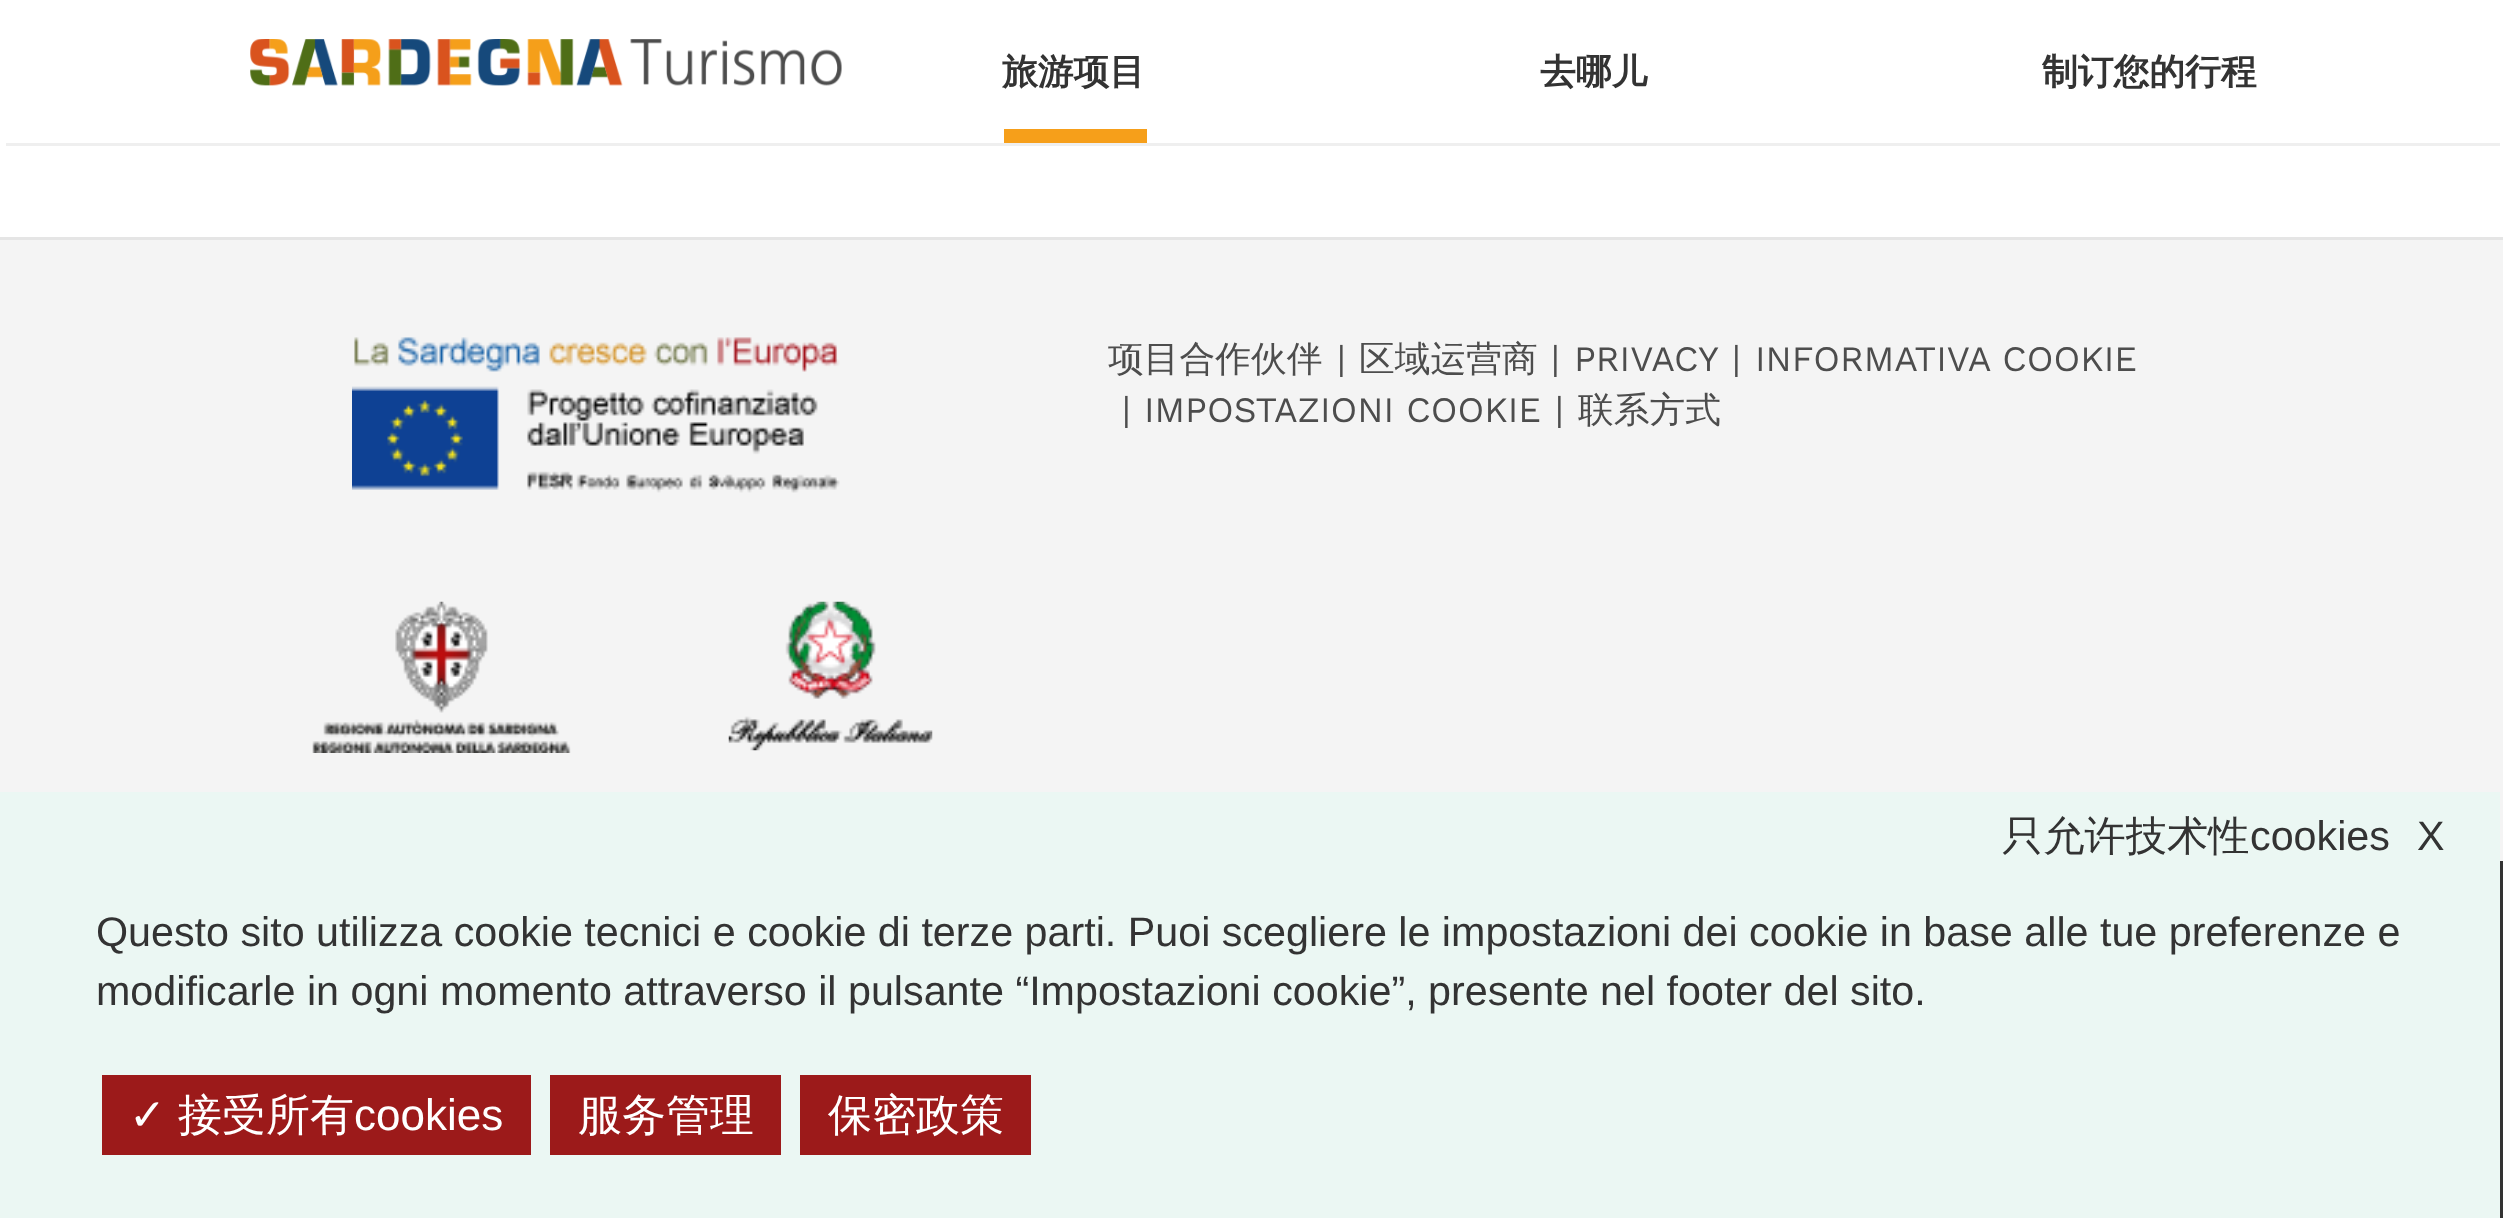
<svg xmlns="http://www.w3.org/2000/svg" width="2503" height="1218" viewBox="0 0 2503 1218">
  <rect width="100%" height="100%" fill="#ffffff"/>
  <rect x="6" y="143" width="2494" height="3" fill="#efefef"/>
  <image x="250" y="39" width="592" height="47" href="img1.png"/>
  <rect x="1004" y="129" width="143" height="14" fill="#f69f1a"/>
  <text x="1002" y="84" font-family="WenQuanYi Zen Hei" font-size="35.75" font-weight="bold" fill="#333333">旅游项目</text>
  <text x="1540" y="84" font-family="WenQuanYi Zen Hei" font-size="35.75" font-weight="bold" fill="#333333">去哪儿</text>
  <text x="2042" y="84" font-family="WenQuanYi Zen Hei" font-size="35.75" font-weight="bold" fill="#333333">制订您的行程</text>
  <rect x="0" y="240" width="2503" height="621" fill="#f4f4f4"/>
  <rect x="0" y="237" width="2503" height="3" fill="#e5e5e5"/>
  <image x="352" y="337" width="488" height="156" href="img2.png"/>
  <image x="312" y="601" width="259" height="152" href="img3.png"/>
  <image x="728" y="601" width="205" height="150" href="img4.png"/>
  <text x="1108" y="371" font-family="WenQuanYi Zen Hei" font-size="35.75" font-weight="500" fill="#4d4d4d">项目合作伙伴</text>
  <text x="1337" y="371" font-family="Work Sans" font-size="35.75" fill="#4d4d4d">|</text>
  <text x="1359" y="371" font-family="WenQuanYi Zen Hei" font-size="35.75" font-weight="500" fill="#4d4d4d">区域运营商</text>
  <text x="1551" y="371" font-family="Work Sans" font-size="35.75" fill="#4d4d4d">|</text>
  <text x="1574" y="371" font-family="Work Sans" font-size="35.75" fill="#4d4d4d">PRIVACY</text>
  <text x="1732" y="371" font-family="Work Sans" font-size="35.75" fill="#4d4d4d">|</text>
  <text x="1755" y="371" font-family="Work Sans" font-size="35.75" fill="#4d4d4d">INFORMATIVA COOKIE</text>
  <text x="1122" y="422" font-family="Work Sans" font-size="35.75" fill="#4d4d4d">|</text>
  <text x="1144" y="422" font-family="Work Sans" font-size="35.75" fill="#4d4d4d">IMPOSTAZIONI COOKIE</text>
  <text x="1555" y="422" font-family="Work Sans" font-size="35.75" fill="#4d4d4d">|</text>
  <text x="1578" y="422" font-family="WenQuanYi Zen Hei" font-size="35.75" font-weight="500" fill="#4d4d4d">联系方式</text>
  <rect x="2500" y="861" width="3" height="357" fill="#333333"/>
  <rect x="0" y="792" width="2500" height="426" fill="#ebf7f3"/>
  <text x="2002" y="850" font-family="WenQuanYi Zen Hei" font-size="41.25" font-weight="500" fill="#333333">只允许技术性</text>
  <text x="2250" y="850" font-family="Liberation Sans" font-size="41.25" fill="#333333">cookies</text>
  <text x="2417" y="850" font-family="Liberation Sans" font-size="41.25" fill="#333333">X</text>
  <text x="96" y="946" font-family="Liberation Sans" font-size="41.25" fill="#333333">Questo sito utilizza cookie tecnici e cookie di terze parti. Puoi scegliere le impostazioni dei cookie in base alle tue preferenze e</text>
  <text x="96" y="1005" font-family="Liberation Sans" font-size="41.25" fill="#333333">modificarle in ogni momento attraverso il pulsante “Impostazioni cookie”, presente nel footer del sito.</text>
  <rect x="102" y="1075" width="429" height="80" fill="#9c1a1a"/>
  <text x="129" y="1130" font-family="DejaVu Sans" font-size="44" fill="#ffffff">✓</text>
  <text x="178" y="1130" font-family="WenQuanYi Zen Hei" font-size="44" font-weight="500" fill="#ffffff">接受所有</text>
  <text x="354" y="1130" font-family="Liberation Sans" font-size="44" fill="#ffffff">cookies</text>
  <rect x="550" y="1075" width="231" height="80" fill="#9c1a1a"/>
  <text x="578" y="1130" font-family="WenQuanYi Zen Hei" font-size="44" font-weight="500" fill="#ffffff">服务管理</text>
  <rect x="800" y="1075" width="231" height="80" fill="#9c1a1a"/>
  <text x="828" y="1130" font-family="WenQuanYi Zen Hei" font-size="44" font-weight="500" fill="#ffffff">保密政策</text>
</svg>
